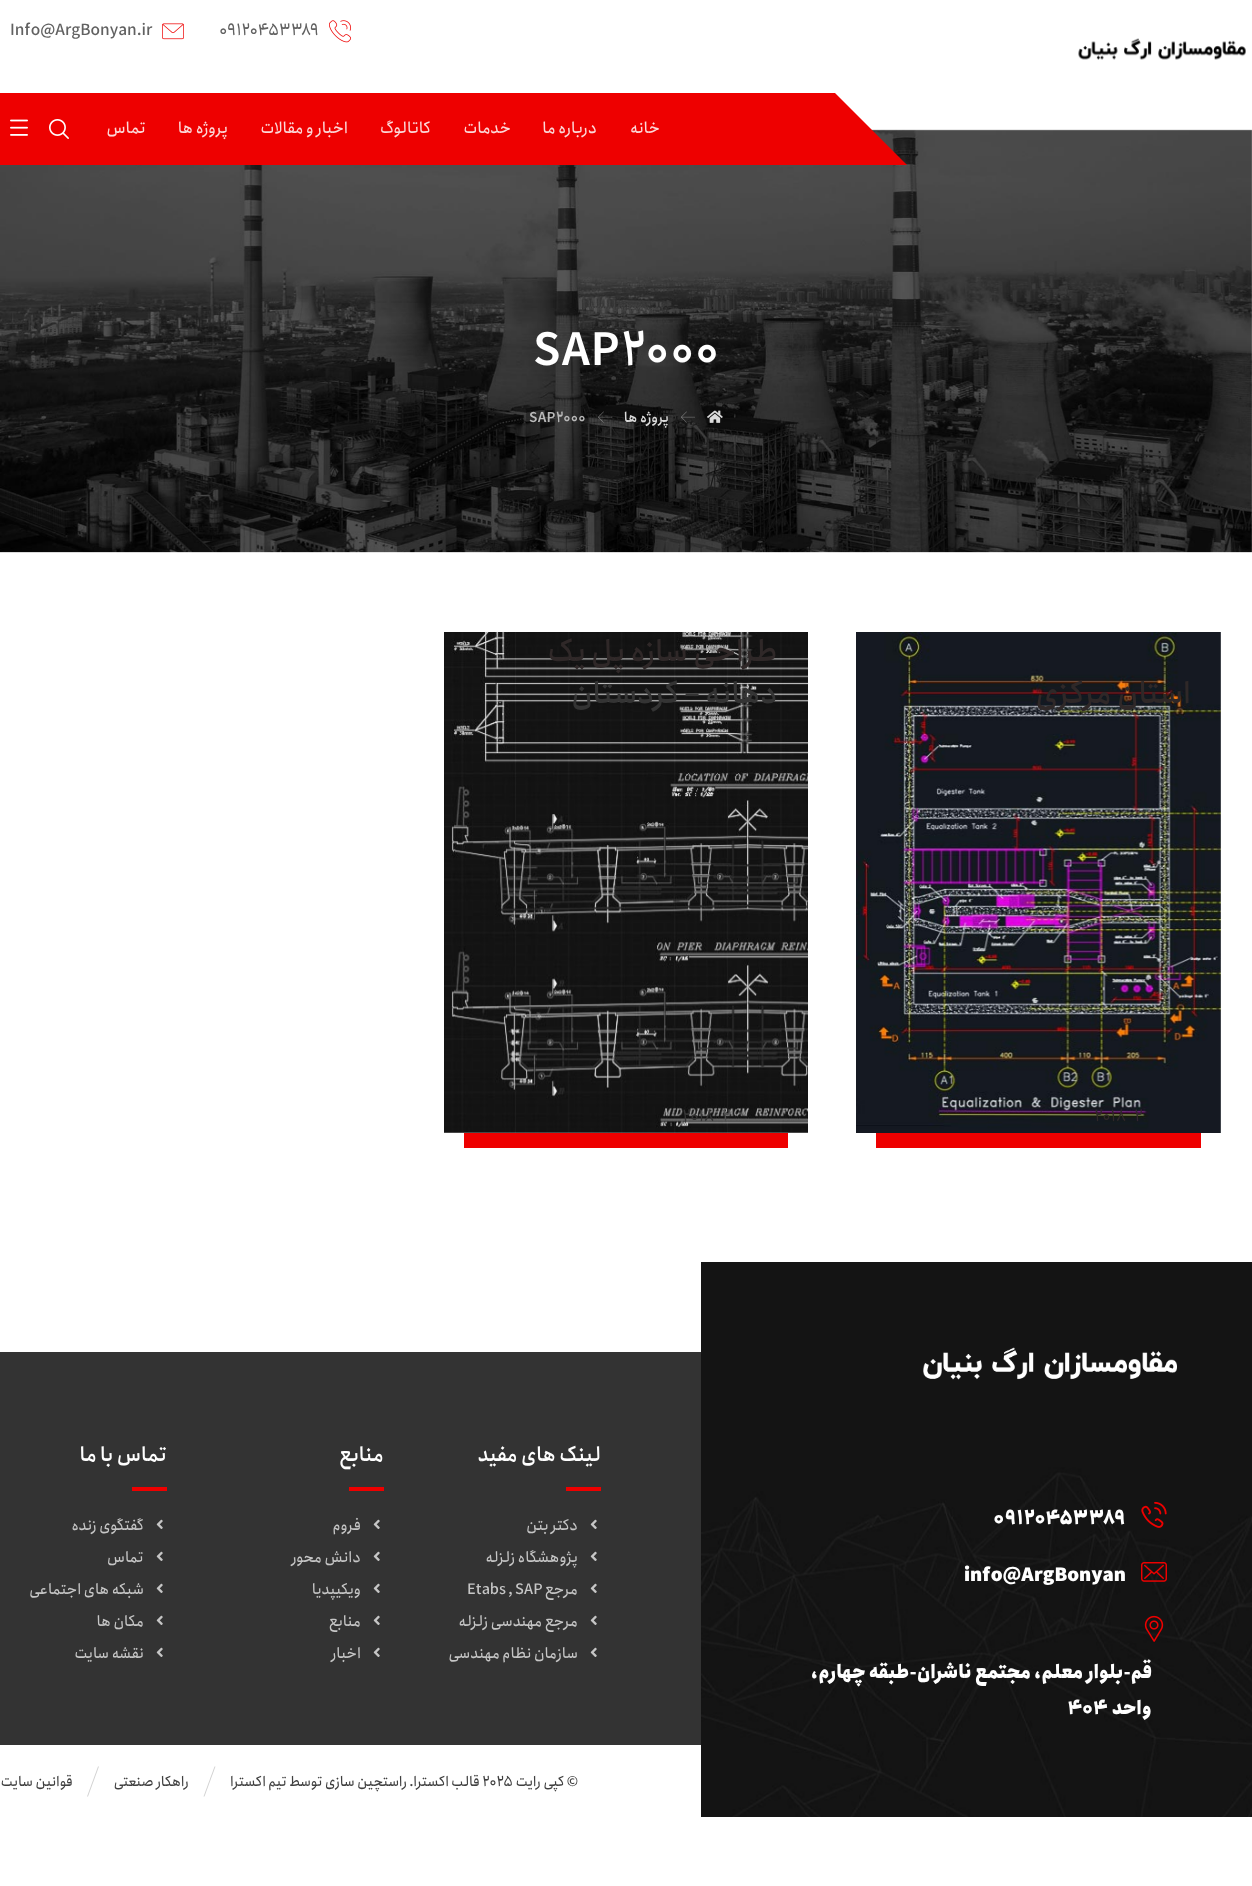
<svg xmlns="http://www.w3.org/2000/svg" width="1252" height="1886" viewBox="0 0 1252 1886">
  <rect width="100%" height="100%" fill="#ffffff"/>
  <image x="329" y="20" width="22" height="23" href="img1.png"/>
  <text x="219" y="35" font-family="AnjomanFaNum" font-size="16" font-weight="500" fill="#616161">۰۹۱۲۰۴۵۳۳۸۹</text>
  <image x="162" y="23" width="22" height="17" href="img2.png"/>
  <text x="10" y="35" font-family="AnjomanFaNum" font-size="16" font-weight="500" fill="#616161">Info@ArgBonyan.ir</text>
  <image x="1078" y="38" width="168" height="22" href="img3.png"/>
  <image x="0" y="129" width="1252" height="424" href="img6.png"/>
  <rect x="0" y="93" width="798" height="72" fill="#ee0000"/>
  <path d="M726 93H835L907 165H798Z" fill="#ee0000"/>
  <text x="660" y="133" font-family="AnjomanFaNum" font-size="16" font-weight="500" direction="rtl" fill="#fcd9d9">خانه</text>
  <text x="597" y="133" font-family="AnjomanFaNum" font-size="16" font-weight="500" direction="rtl" fill="#fcd9d9">درباره ما</text>
  <text x="511" y="133" font-family="AnjomanFaNum" font-size="16" font-weight="500" direction="rtl" fill="#fcd9d9">خدمات</text>
  <text x="431" y="133" font-family="AnjomanFaNum" font-size="16" font-weight="500" direction="rtl" fill="#fcd9d9">کاتالوگ</text>
  <text x="348" y="133" font-family="AnjomanFaNum" font-size="16" font-weight="500" direction="rtl" fill="#fcd9d9">اخبار و مقالات</text>
  <text x="228" y="133" font-family="AnjomanFaNum" font-size="16" font-weight="500" direction="rtl" fill="#fcd9d9">پروژه ها</text>
  <text x="146" y="133" font-family="AnjomanFaNum" font-size="16" font-weight="500" direction="rtl" fill="#fcd9d9">تماس</text>
  <image x="49" y="119" width="20" height="20" href="img4.png"/>
  <image x="10" y="119" width="18" height="17" href="img5.png"/>
  <text x="533" y="365" font-family="AnjomanFaNum" font-size="46" font-weight="600" fill="#ffffff">SAP2000</text>
  <image x="707" y="410" width="16" height="13" href="img7.png"/>
  <image x="681" y="411" width="14" height="12" href="img8.png"/>
  <text x="669" y="422" font-family="AnjomanFaNum" font-size="14" font-weight="600" direction="rtl" fill="#dbdbdb">پروژه ها</text>
  <image x="598" y="411" width="14" height="12" href="img9.png"/>
  <text x="529" y="422" font-family="AnjomanFaNum" font-size="14" font-weight="600" fill="#bababa">SAP2000</text>
  <rect x="876" y="1133" width="325" height="15" fill="#ee0000"/>
  <image x="856" y="632" width="365" height="501" href="img10.png"/>
  <text x="1191" y="703" font-family="AnjomanFaNum" font-size="30" font-weight="600" direction="rtl" fill="#2f2828">استان مرکزی</text>
  <text x="1134" y="1121" font-family="AnjomanFaNum" font-size="16" font-weight="500" fill="#33262f">۲</text>
  <text x="1094" y="1121" font-family="AnjomanFaNum" font-size="16" font-weight="500" fill="#2f2828">۲۰۱۸</text>
  <rect x="464" y="1133" width="324" height="15" fill="#ee0000"/>
  <image x="444" y="632" width="364" height="501" href="img11.png"/>
  <text x="778" y="661" font-family="AnjomanFaNum" font-size="30" font-weight="600" direction="rtl" fill="#2f2828">طراحی سازه پل یک</text>
  <text x="778" y="703" font-family="AnjomanFaNum" font-size="30" font-weight="600" direction="rtl" fill="#343434">دهانه – کردستان</text>
  <text x="722" y="1121" font-family="AnjomanFaNum" font-size="16" font-weight="500" fill="#505050">۲</text>
  <text x="682" y="1121" font-family="AnjomanFaNum" font-size="16" font-weight="500" fill="#343434">۲۰۱۸</text>
  <rect x="0" y="1352" width="701" height="393" fill="#333333"/>
  <image x="701" y="1262" width="551" height="555" href="img12.png"/>
  <image x="923" y="1347" width="254" height="33" href="img13.png"/>
  <image x="1141" y="1501" width="26" height="27" href="img14.png"/>
  <text x="993" y="1524" font-family="AnjomanFaNum" font-size="18" font-weight="900" fill="#ffffff">09120453389</text>
  <image x="1141" y="1562" width="26" height="20" href="img15.png"/>
  <text x="964" y="1581" font-family="AnjomanFaNum" font-size="18" font-weight="900" fill="#ffffff">info@ArgBonyan</text>
  <image x="1144" y="1615" width="20" height="27" href="img16.png"/>
  <text x="1152" y="1678" font-family="AnjomanFaNum" font-size="18" font-weight="900" direction="rtl" fill="#ffffff">قم-بلوار معلم، مجتمع ناشران-طبقه چهارم،</text>
  <text x="1152" y="1714" font-family="AnjomanFaNum" font-size="18" font-weight="900" direction="rtl" fill="#ffffff">واحد</text>
  <text x="1067" y="1714" font-family="AnjomanFaNum" font-size="18" font-weight="900" fill="#ffffff">404</text>
  <text x="601" y="1461" font-family="AnjomanFaNum" font-size="20" font-weight="600" direction="rtl" fill="#ffffff">لینک های مفید</text>
  <rect x="566" y="1487" width="35" height="4" fill="#ee0000"/>
  <image x="590" y="1519" width="7" height="10" href="img17.png"/>
  <text x="578" y="1530" font-family="AnjomanFaNum" font-size="15" font-weight="500" direction="rtl" fill="#c6c6c6">دکتر بتن</text>
  <image x="590" y="1551" width="7" height="10" href="img17.png"/>
  <text x="578" y="1562" font-family="AnjomanFaNum" font-size="15" font-weight="500" direction="rtl" fill="#c6c6c6">پژوهشگاه زلزله</text>
  <image x="590" y="1583" width="7" height="10" href="img17.png"/>
  <text x="578" y="1594" font-family="AnjomanFaNum" font-size="15" font-weight="500" direction="rtl" fill="#c6c6c6">مرجع</text>
  <text x="467" y="1594" font-family="AnjomanFaNum" font-size="15" font-weight="500" fill="#c6c6c6">Etabs , SAP</text>
  <image x="590" y="1615" width="7" height="10" href="img17.png"/>
  <text x="578" y="1626" font-family="AnjomanFaNum" font-size="15" font-weight="500" direction="rtl" fill="#c6c6c6">مرجع مهندسی زلزله</text>
  <image x="590" y="1647" width="7" height="10" href="img17.png"/>
  <text x="578" y="1658" font-family="AnjomanFaNum" font-size="15" font-weight="500" direction="rtl" fill="#c6c6c6">سازمان نظام مهندسی</text>
  <text x="384" y="1461" font-family="AnjomanFaNum" font-size="20" font-weight="600" direction="rtl" fill="#ffffff">منابع</text>
  <rect x="349" y="1487" width="35" height="4" fill="#ee0000"/>
  <image x="373" y="1519" width="7" height="10" href="img17.png"/>
  <text x="361" y="1530" font-family="AnjomanFaNum" font-size="15" font-weight="500" direction="rtl" fill="#c6c6c6">فروم</text>
  <image x="373" y="1551" width="7" height="10" href="img17.png"/>
  <text x="361" y="1562" font-family="AnjomanFaNum" font-size="15" font-weight="500" direction="rtl" fill="#c6c6c6">دانش محور</text>
  <image x="373" y="1583" width="7" height="10" href="img17.png"/>
  <text x="361" y="1594" font-family="AnjomanFaNum" font-size="15" font-weight="500" direction="rtl" fill="#c6c6c6">ویکیپدیا</text>
  <image x="373" y="1615" width="7" height="10" href="img17.png"/>
  <text x="361" y="1626" font-family="AnjomanFaNum" font-size="15" font-weight="500" direction="rtl" fill="#c6c6c6">منابع</text>
  <image x="373" y="1647" width="7" height="10" href="img17.png"/>
  <text x="361" y="1658" font-family="AnjomanFaNum" font-size="15" font-weight="500" direction="rtl" fill="#c6c6c6">اخبار</text>
  <text x="167" y="1461" font-family="AnjomanFaNum" font-size="20" font-weight="600" direction="rtl" fill="#ffffff">تماس با ما</text>
  <rect x="132" y="1487" width="35" height="4" fill="#ee0000"/>
  <image x="156" y="1519" width="7" height="10" href="img17.png"/>
  <text x="144" y="1530" font-family="AnjomanFaNum" font-size="15" font-weight="500" direction="rtl" fill="#c6c6c6">گفتگوی زنده</text>
  <image x="156" y="1551" width="7" height="10" href="img17.png"/>
  <text x="144" y="1562" font-family="AnjomanFaNum" font-size="15" font-weight="500" direction="rtl" fill="#c6c6c6">تماس</text>
  <image x="156" y="1583" width="7" height="10" href="img17.png"/>
  <text x="144" y="1594" font-family="AnjomanFaNum" font-size="15" font-weight="500" direction="rtl" fill="#c6c6c6">شبکه های اجتماعی</text>
  <image x="156" y="1615" width="7" height="10" href="img17.png"/>
  <text x="144" y="1626" font-family="AnjomanFaNum" font-size="15" font-weight="500" direction="rtl" fill="#c6c6c6">مکان ها</text>
  <image x="156" y="1647" width="7" height="10" href="img17.png"/>
  <text x="144" y="1658" font-family="AnjomanFaNum" font-size="15" font-weight="500" direction="rtl" fill="#c6c6c6">نقشه سایت</text>
  <text x="578" y="1786" font-family="AnjomanFaNum" font-size="14" font-weight="500" direction="rtl" fill="#3f3f3f">© کپی رایت</text>
  <text x="482" y="1786" font-family="AnjomanFaNum" font-size="14" font-weight="500" fill="#3f3f3f">۲۰۲۵</text>
  <text x="480" y="1786" font-family="AnjomanFaNum" font-size="14" font-weight="500" direction="rtl" fill="#3f3f3f">قالب اکسترا. راستچین سازی توسط</text>
  <text x="287" y="1786" font-family="AnjomanFaNum" font-size="14" font-weight="500" direction="rtl" fill="#3f3f3f">تیم اکسترا</text>
  <path d="M214.5 1766.5H215.5L204.5 1796.5H203.5Z" fill="#d2d2d2"/>
  <text x="189" y="1786" font-family="AnjomanFaNum" font-size="14" font-weight="500" direction="rtl" fill="#3f3f3f">راهکار صنعتی</text>
  <path d="M98 1766.5H99L88 1796.5H87Z" fill="#d2d2d2"/>
  <text x="73" y="1786" font-family="AnjomanFaNum" font-size="14" font-weight="500" direction="rtl" fill="#3f3f3f">قوانین سایت</text>
</svg>
